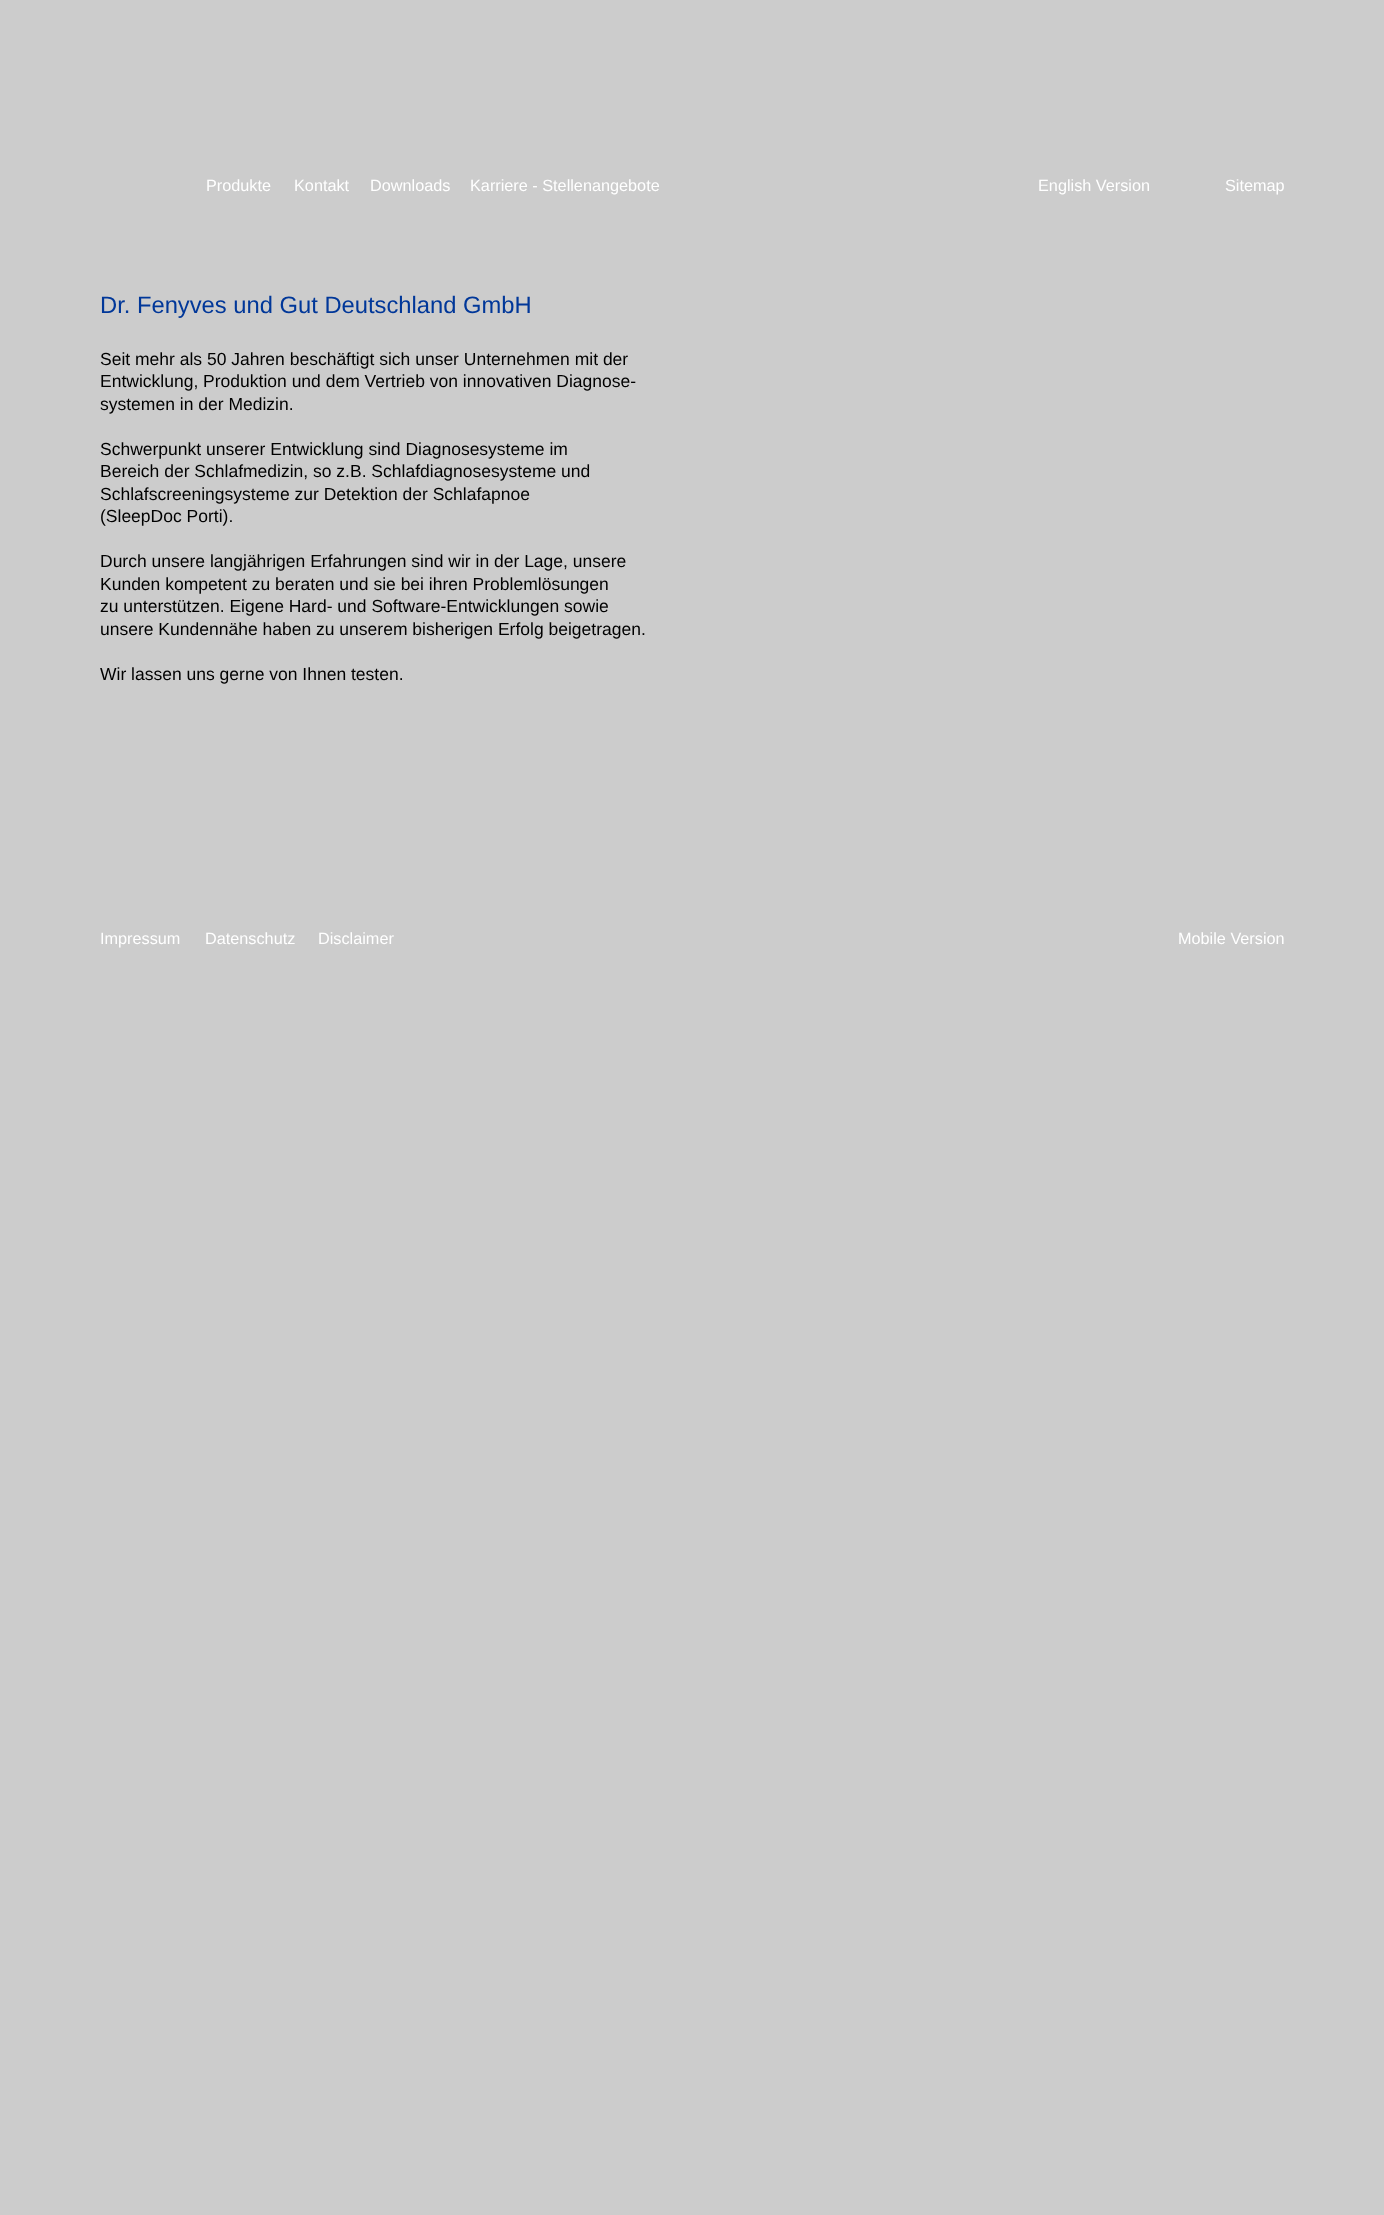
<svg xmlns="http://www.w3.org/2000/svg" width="1384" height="2215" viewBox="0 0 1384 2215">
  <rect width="100%" height="100%" fill="#cccccc"/>
  <text x="206" y="191" font-family="Liberation Sans" font-size="16.25" fill="#ffffff">Produkte</text>
  <text x="294" y="191" font-family="Liberation Sans" font-size="16.25" fill="#ffffff">Kontakt</text>
  <text x="370" y="191" font-family="Liberation Sans" font-size="16.25" fill="#ffffff">Downloads</text>
  <text x="470" y="191" font-family="Liberation Sans" font-size="16.25" fill="#ffffff">Karriere - Stellenangebote</text>
  <text x="1038" y="191" font-family="Liberation Sans" font-size="16.25" fill="#ffffff">English Version</text>
  <text x="1225" y="191" font-family="Liberation Sans" font-size="16.25" fill="#ffffff">Sitemap</text>
  <text x="100" y="313" font-family="Liberation Sans" font-size="23.75" fill="#003799">Dr. Fenyves und Gut Deutschland GmbH</text>
  <text x="100" y="365" font-family="Liberation Sans" font-size="17.5" fill="#000000">Seit mehr als 50 Jahren beschäftigt sich unser Unternehmen mit der</text>
  <text x="100" y="387" font-family="Liberation Sans" font-size="17.5" fill="#000000">Entwicklung, Produktion und dem Vertrieb von innovativen Diagnose-</text>
  <text x="100" y="410" font-family="Liberation Sans" font-size="17.5" fill="#000000">systemen in der Medizin.</text>
  <text x="100" y="455" font-family="Liberation Sans" font-size="17.5" fill="#000000">Schwerpunkt unserer Entwicklung sind Diagnosesysteme im</text>
  <text x="100" y="477" font-family="Liberation Sans" font-size="17.5" fill="#000000">Bereich der Schlafmedizin, so z.B. Schlafdiagnosesysteme und</text>
  <text x="100" y="500" font-family="Liberation Sans" font-size="17.5" fill="#000000">Schlafscreeningsysteme zur Detektion der Schlafapnoe</text>
  <text x="100" y="522" font-family="Liberation Sans" font-size="17.5" fill="#000000">(SleepDoc Porti).</text>
  <text x="100" y="567" font-family="Liberation Sans" font-size="17.5" fill="#000000">Durch unsere langjährigen Erfahrungen sind wir in der Lage, unsere</text>
  <text x="100" y="590" font-family="Liberation Sans" font-size="17.5" fill="#000000">Kunden kompetent zu beraten und sie bei ihren Problemlösungen</text>
  <text x="100" y="612" font-family="Liberation Sans" font-size="17.5" fill="#000000">zu unterstützen. Eigene Hard- und Software-Entwicklungen sowie</text>
  <text x="100" y="635" font-family="Liberation Sans" font-size="17.5" fill="#000000">unsere Kundennähe haben zu unserem bisherigen Erfolg beigetragen.</text>
  <text x="100" y="680" font-family="Liberation Sans" font-size="17.5" fill="#000000">Wir lassen uns gerne von Ihnen testen.</text>
  <text x="100" y="944" font-family="Liberation Sans" font-size="16.25" fill="#ffffff">Impressum</text>
  <text x="205" y="944" font-family="Liberation Sans" font-size="16.25" fill="#ffffff">Datenschutz</text>
  <text x="318" y="944" font-family="Liberation Sans" font-size="16.25" fill="#ffffff">Disclaimer</text>
  <text x="1178" y="944" font-family="Liberation Sans" font-size="16.25" fill="#ffffff">Mobile Version</text>
</svg>
